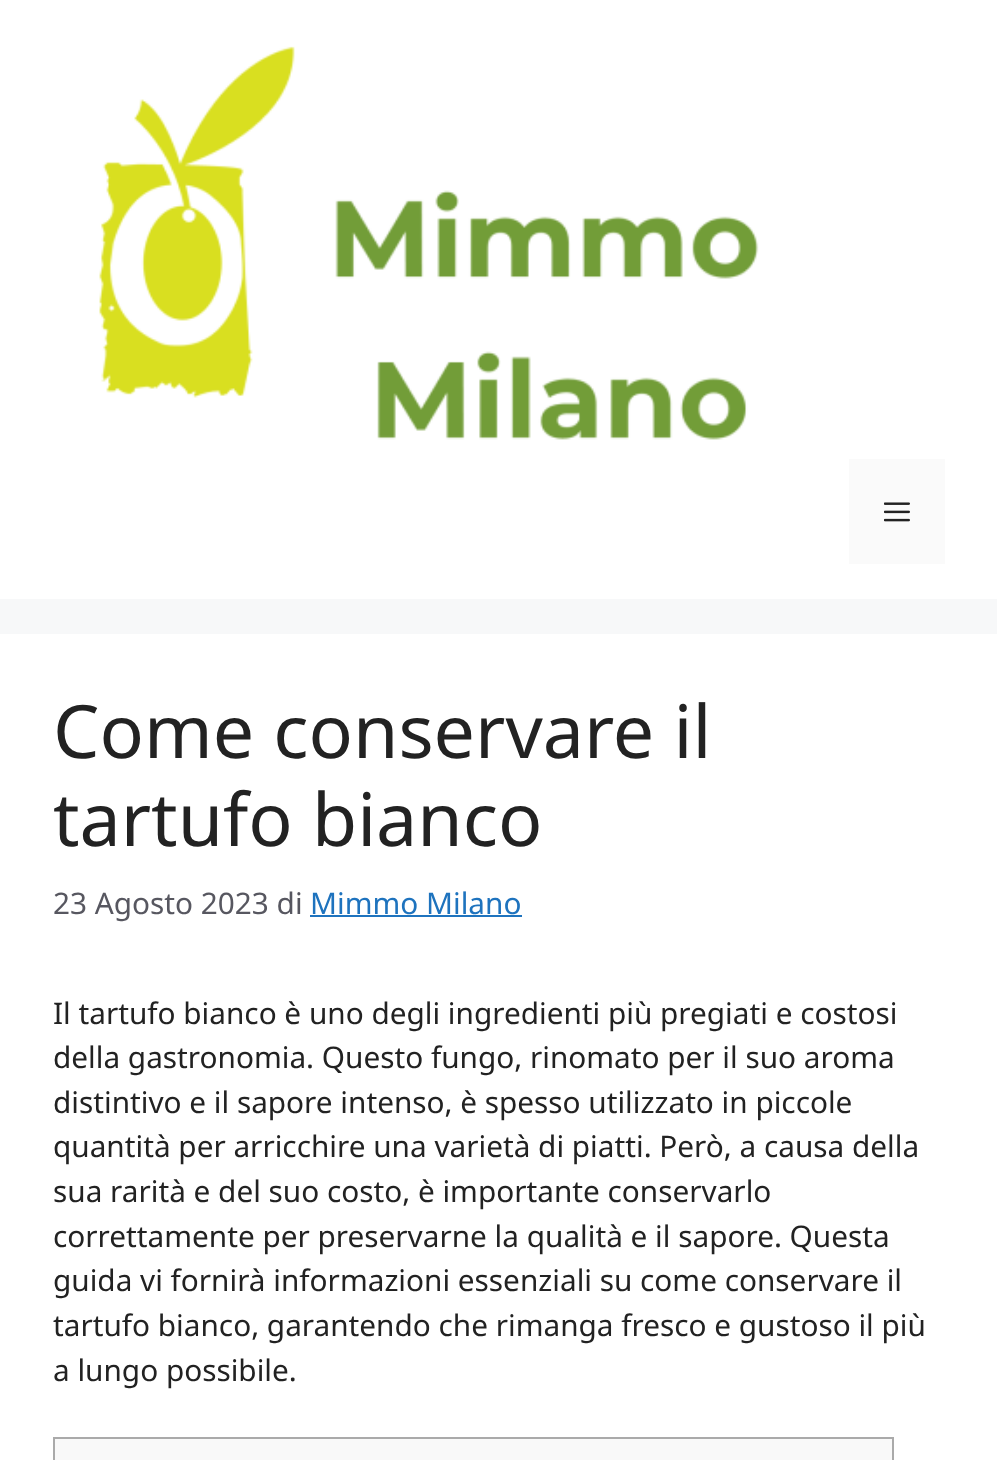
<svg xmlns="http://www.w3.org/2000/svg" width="997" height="1460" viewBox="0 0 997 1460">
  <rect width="100%" height="100%" fill="#f7f8f9"/>
  <rect x="0" y="0" width="997" height="599" fill="#ffffff"/>
  <image x="99" y="46" width="660" height="394" href="img1.png"/>
  <rect x="849" y="459" width="96" height="105" fill="#fafafa"/>
  <image x="884" y="502" width="26" height="20" href="img2.png"/>
  <rect x="0" y="634" width="997" height="826" fill="#ffffff"/>
  <text x="53" y="758" font-family="Noto Sans" font-size="73.5" fill="#222222">Come conservare il</text>
  <text x="53" y="846" font-family="Noto Sans" font-size="73.5" fill="#222222">tartufo bianco</text>
  <text x="53" y="914" font-family="Noto Sans" font-size="29.75" fill="#575760">23 Agosto 2023 di</text>
  <text x="310" y="914" font-family="Noto Sans" font-size="29.75" fill="#1e73be">Mimmo Milano</text>
  <rect x="310" y="915" width="212" height="2" fill="#1e73be"/>
  <text x="53" y="1024" font-family="Noto Sans" font-size="29.75" fill="#222222">Il tartufo bianco è uno degli ingredienti più pregiati e costosi</text>
  <text x="53" y="1068" font-family="Noto Sans" font-size="29.75" fill="#222222">della gastronomia. Questo fungo, rinomato per il suo aroma</text>
  <text x="53" y="1113" font-family="Noto Sans" font-size="29.75" fill="#222222">distintivo e il sapore intenso, è spesso utilizzato in piccole</text>
  <text x="53" y="1157" font-family="Noto Sans" font-size="29.75" fill="#222222">quantità per arricchire una varietà di piatti. Però, a causa della</text>
  <text x="53" y="1202" font-family="Noto Sans" font-size="29.75" fill="#222222">sua rarità e del suo costo, è importante conservarlo</text>
  <text x="53" y="1247" font-family="Noto Sans" font-size="29.75" fill="#222222">correttamente per preservarne la qualità e il sapore. Questa</text>
  <text x="53" y="1291" font-family="Noto Sans" font-size="29.75" fill="#222222">guida vi fornirà informazioni essenziali su come conservare il</text>
  <text x="53" y="1336" font-family="Noto Sans" font-size="29.75" fill="#222222">tartufo bianco, garantendo che rimanga fresco e gustoso il più</text>
  <text x="53" y="1381" font-family="Noto Sans" font-size="29.75" fill="#222222">a lungo possibile.</text>
  <rect x="54" y="1438" width="839" height="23" fill="#f9f9f9" stroke="#aaaaaa" stroke-width="2"/>
</svg>
